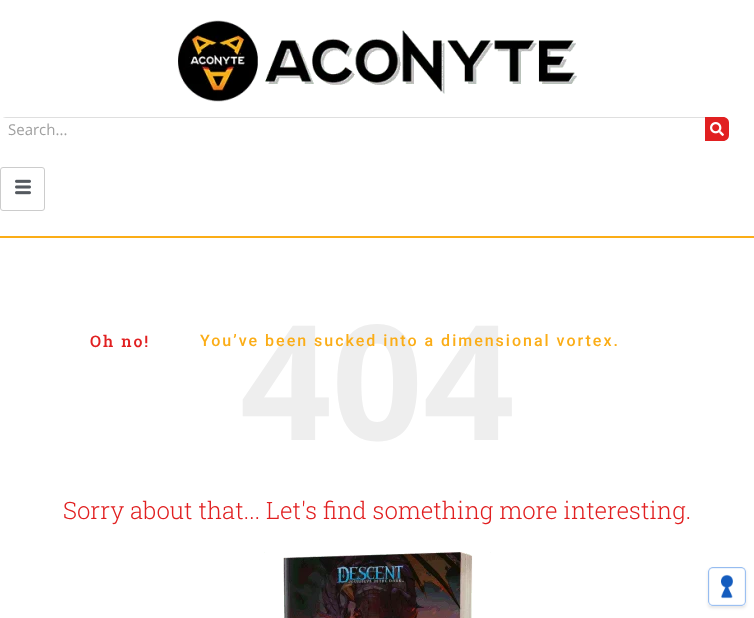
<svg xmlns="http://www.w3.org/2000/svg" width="754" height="618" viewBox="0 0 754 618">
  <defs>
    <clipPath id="clip1"><rect x="0" y="117" width="729" height="24" rx="6"/></clipPath>
    <filter id="blur1" x="-50%" y="-200%" width="200%" height="500%"><feGaussianBlur stdDeviation="1.5"/></filter>
  </defs>
  <rect width="100%" height="100%" fill="#ffffff"/>
  <rect x="0" y="236" width="754" height="2" fill="#fbad17"/>
  <image x="178" y="20" width="399" height="82" href="img1.png"/>
  <g clip-path="url(#clip1)">
    <rect x="0" y="117" width="705" height="1" fill="#dfdfdf"/>
  </g>
  <text x="8" y="135" font-family="Open Sans" font-size="15" fill="#a0a0a0">Search...</text>
  <path d="M705 117H723C726.5 117 729 119.5 729 123V135C729 138.5 726.5 141 723 141H705Z" fill="#e12021"/>
  <image x="710" y="122" width="14" height="14" href="img2.png"/>
  <rect x="0.5" y="167.5" width="44" height="43" rx="2.5" fill="none" stroke="#cccccc"/>
  <image x="15" y="179" width="16" height="16" href="img3.png"/>
  <text x="240" y="440" font-family="Open Sans" font-size="160" font-weight="bold" fill="#eeeeee">404</text>
  <text x="90" y="347" font-family="Roboto Slab" font-size="16" font-weight="500" letter-spacing="2" fill="#e12021">Oh no!</text>
  <text x="200" y="346" font-family="Roboto" font-size="16" font-weight="500" letter-spacing="2" fill="#fbad17">You’ve been sucked into a dimensional vortex.</text>
  <text x="63" y="519" font-family="Roboto Slab" font-size="24" font-weight="300" fill="#e12021">Sorry about that... Let's find something more interesting.</text>
  <image x="264" y="552" width="227" height="66" href="img4.png"/>
  <rect x="708" y="569" width="38" height="39" rx="4" fill="#000000" fill-opacity="0.1" filter="url(#blur1)"/>
  <rect x="708" y="567" width="38" height="39" rx="4" fill="#ffffff"/>
  <image x="708" y="567" width="38" height="39" href="img5.png"/>
</svg>
